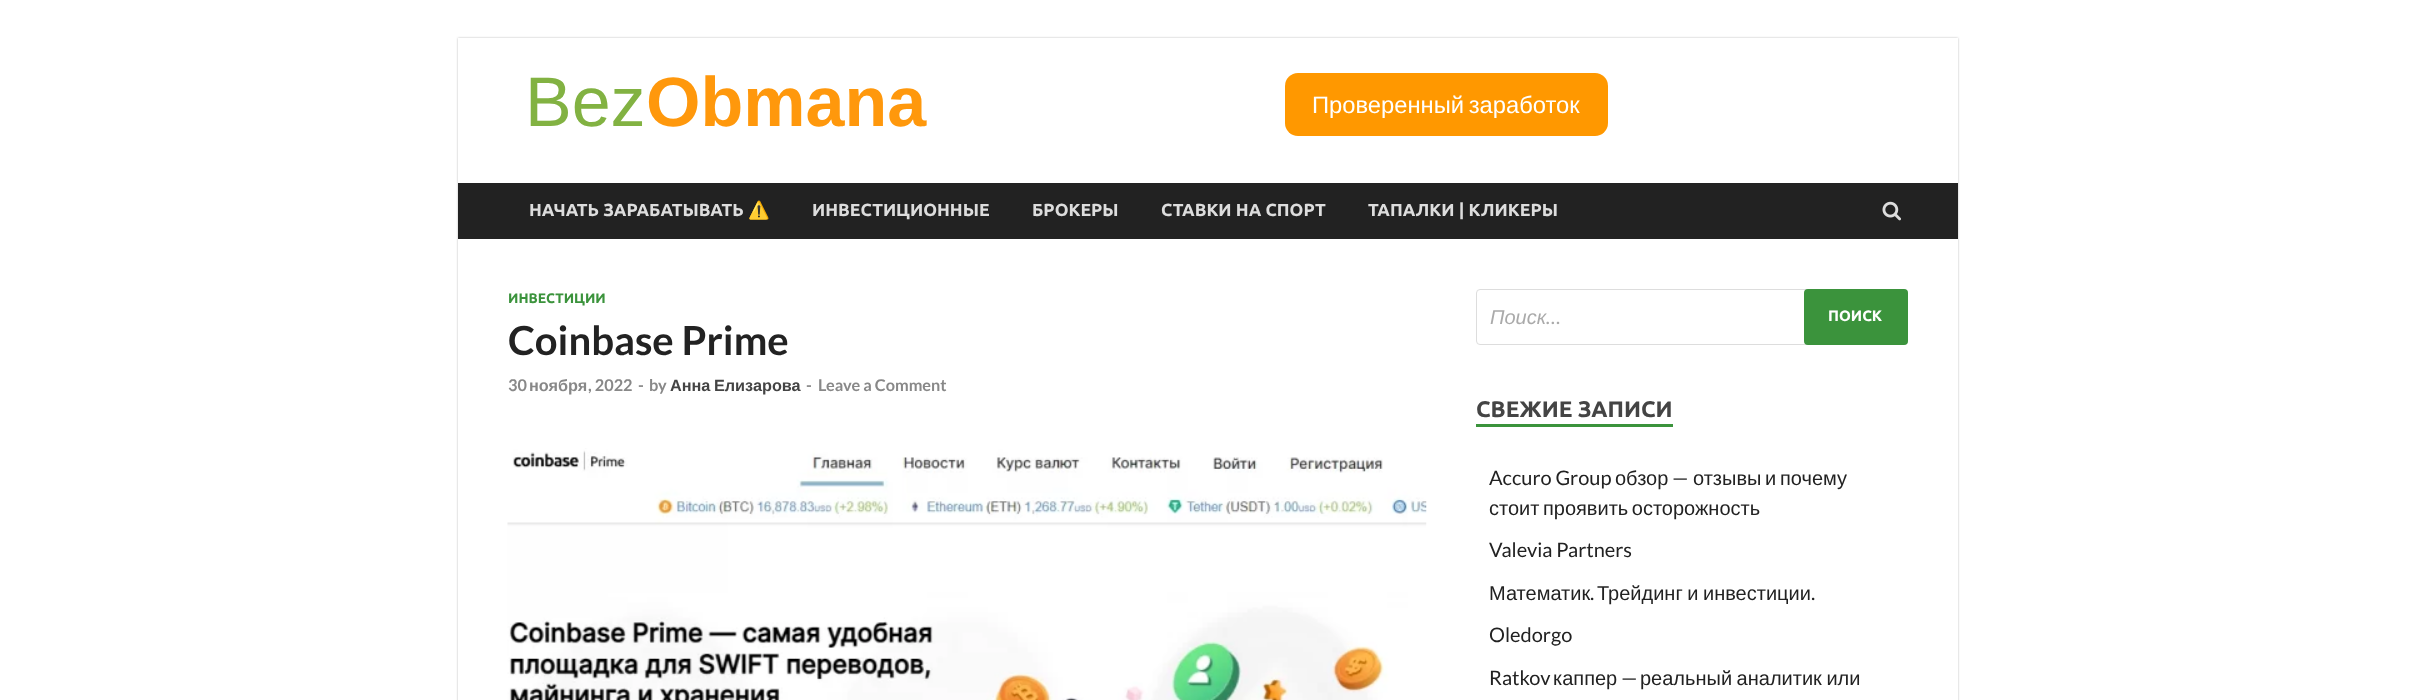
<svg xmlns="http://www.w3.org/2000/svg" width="2414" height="700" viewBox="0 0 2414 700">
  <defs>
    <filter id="blur1" x="-50%" y="-200%" width="200%" height="500%"><feGaussianBlur stdDeviation="1"/></filter>
  </defs>
  <rect width="100%" height="100%" fill="#ffffff"/>
  <rect x="458" y="38" width="1500" height="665" fill="#bbbbbb" filter="url(#blur1)"/>
  <rect x="458" y="38" width="1500" height="662" fill="#ffffff"/>
  <text x="525" y="126" font-family="Liberation Sans" font-size="70" fill="#82b242">Bez</text>
  <text x="646" y="126" font-family="Liberation Sans" font-size="70" font-weight="bold" fill="#ff980c">Obmana</text>
  <rect x="1285" y="73" width="323" height="63" rx="13" fill="#ff9800"/>
  <text x="1312" y="113" word-spacing="-2" font-family="Liberation Sans" font-size="23.75" fill="#ffffff">Проверенный заработок</text>
  <rect x="458" y="183" width="1500" height="56" fill="#222222"/>
  <text x="529" y="216" font-family="Ubuntu" font-size="17.5" font-weight="bold" fill="#dddddd">НАЧАТЬ ЗАРАБАТЫВАТЬ</text>
  <text x="748" y="216" font-family="Noto Color Emoji" font-size="17.5" font-weight="bold" fill="#dddddd">⚠️</text>
  <text x="812" y="216" font-family="Ubuntu" font-size="17.5" font-weight="bold" fill="#dddddd">ИНВЕСТИЦИОННЫЕ</text>
  <text x="1032" y="216" font-family="Ubuntu" font-size="17.5" font-weight="bold" fill="#dddddd">БРОКЕРЫ</text>
  <text x="1161" y="216" font-family="Ubuntu" font-size="17.5" font-weight="bold" fill="#dddddd">СТАВКИ НА СПОРТ</text>
  <text x="1368" y="216" font-family="Ubuntu" font-size="17.5" font-weight="bold" fill="#dddddd">ТАПАЛКИ | КЛИКЕРЫ</text>
  <image x="1882" y="201" width="19" height="20" href="img1.png"/>
  <text x="508" y="303" font-family="Ubuntu" font-size="13.75" font-weight="bold" fill="#3b933c">ИНВЕСТИЦИИ</text>
  <text x="508" y="355" font-family="Lato" font-size="40" font-weight="bold" fill="#222222">Coinbase Prime</text>
  <text x="508" y="391" font-family="Lato" font-size="16.25" font-weight="bold" fill="#888888">30</text>
  <text x="529" y="391" font-family="Liberation Sans" font-size="16.25" font-weight="bold" fill="#888888">ноября</text>
  <text x="588" y="391" font-family="Lato" font-size="16.25" font-weight="bold" fill="#888888">, 2022</text>
  <text x="638" y="391" font-family="Lato" font-size="16.25" font-weight="bold" fill="#888888">-</text>
  <text x="649" y="391" font-family="Lato" font-size="16.25" font-weight="bold" fill="#888888">by</text>
  <text x="670" y="391" word-spacing="-1" font-family="Liberation Sans" font-size="16.25" font-weight="bold" fill="#444444">Анна Елизарова</text>
  <text x="806" y="391" font-family="Lato" font-size="16.25" font-weight="bold" fill="#888888">-</text>
  <text x="818" y="391" font-family="Lato" font-size="16.25" font-weight="bold" fill="#888888">Leave a Comment</text>
  <image x="507" y="448" width="920" height="252" href="img2.png"/>
  <rect x="1476.5" y="289.5" width="431" height="55" rx="3.5" fill="none" stroke="#dddddd"/>
  <text x="1490" y="324" font-family="Liberation Sans" font-size="20" font-style="italic" fill="#aaaaaa">Поиск</text>
  <text x="1546" y="324" font-family="Lato" font-size="20" font-style="italic" fill="#aaaaaa">…</text>
  <rect x="1804" y="289" width="104" height="56" rx="4" fill="#3b933c"/>
  <text x="1828" y="321" font-family="Ubuntu" font-size="15" font-weight="bold" fill="#ffffff">ПОИСК</text>
  <rect x="1476" y="424" width="197" height="3" fill="#3b933c"/>
  <text x="1476" y="417" font-family="Ubuntu" font-size="22.5" font-weight="bold" fill="#444444">СВЕЖИЕ ЗАПИСИ</text>
  <text x="1489" y="485" font-family="Lato" font-size="20" fill="#222222">Accuro Group</text>
  <text x="1615" y="485" font-family="Liberation Sans" font-size="20" fill="#222222">обзор</text>
  <text x="1672" y="485" font-family="Lato" font-size="20" fill="#222222">—</text>
  <text x="1693" y="485" font-family="Liberation Sans" font-size="20" fill="#222222">отзывы</text>
  <text x="1765" y="485" font-family="Liberation Sans" font-size="20" fill="#222222">и</text>
  <text x="1780" y="485" font-family="Liberation Sans" font-size="20" fill="#222222">почему</text>
  <text x="1489" y="515" word-spacing="-2" font-family="Liberation Sans" font-size="20" fill="#222222">стоит проявить осторожность</text>
  <text x="1489" y="557" font-family="Lato" font-size="20" fill="#222222">Valevia Partners</text>
  <text x="1489" y="600" font-family="Liberation Sans" font-size="20" fill="#222222">Математик</text>
  <text x="1590" y="600" font-family="Lato" font-size="20" fill="#222222">.</text>
  <text x="1597" y="600" word-spacing="-1" font-family="Liberation Sans" font-size="20" fill="#222222">Трейдинг и инвестиции</text>
  <text x="1811" y="600" font-family="Lato" font-size="20" fill="#222222">.</text>
  <text x="1489" y="642" font-family="Lato" font-size="20" fill="#222222">Oledorgo</text>
  <text x="1489" y="685" font-family="Lato" font-size="20" fill="#222222">Ratkov</text>
  <text x="1553" y="685" font-family="Liberation Sans" font-size="20" fill="#222222">каппер</text>
  <text x="1621" y="685" font-family="Lato" font-size="20" fill="#222222">—</text>
  <text x="1640" y="685" word-spacing="-1" font-family="Liberation Sans" font-size="20" fill="#222222">реальный аналитик или</text>
</svg>
